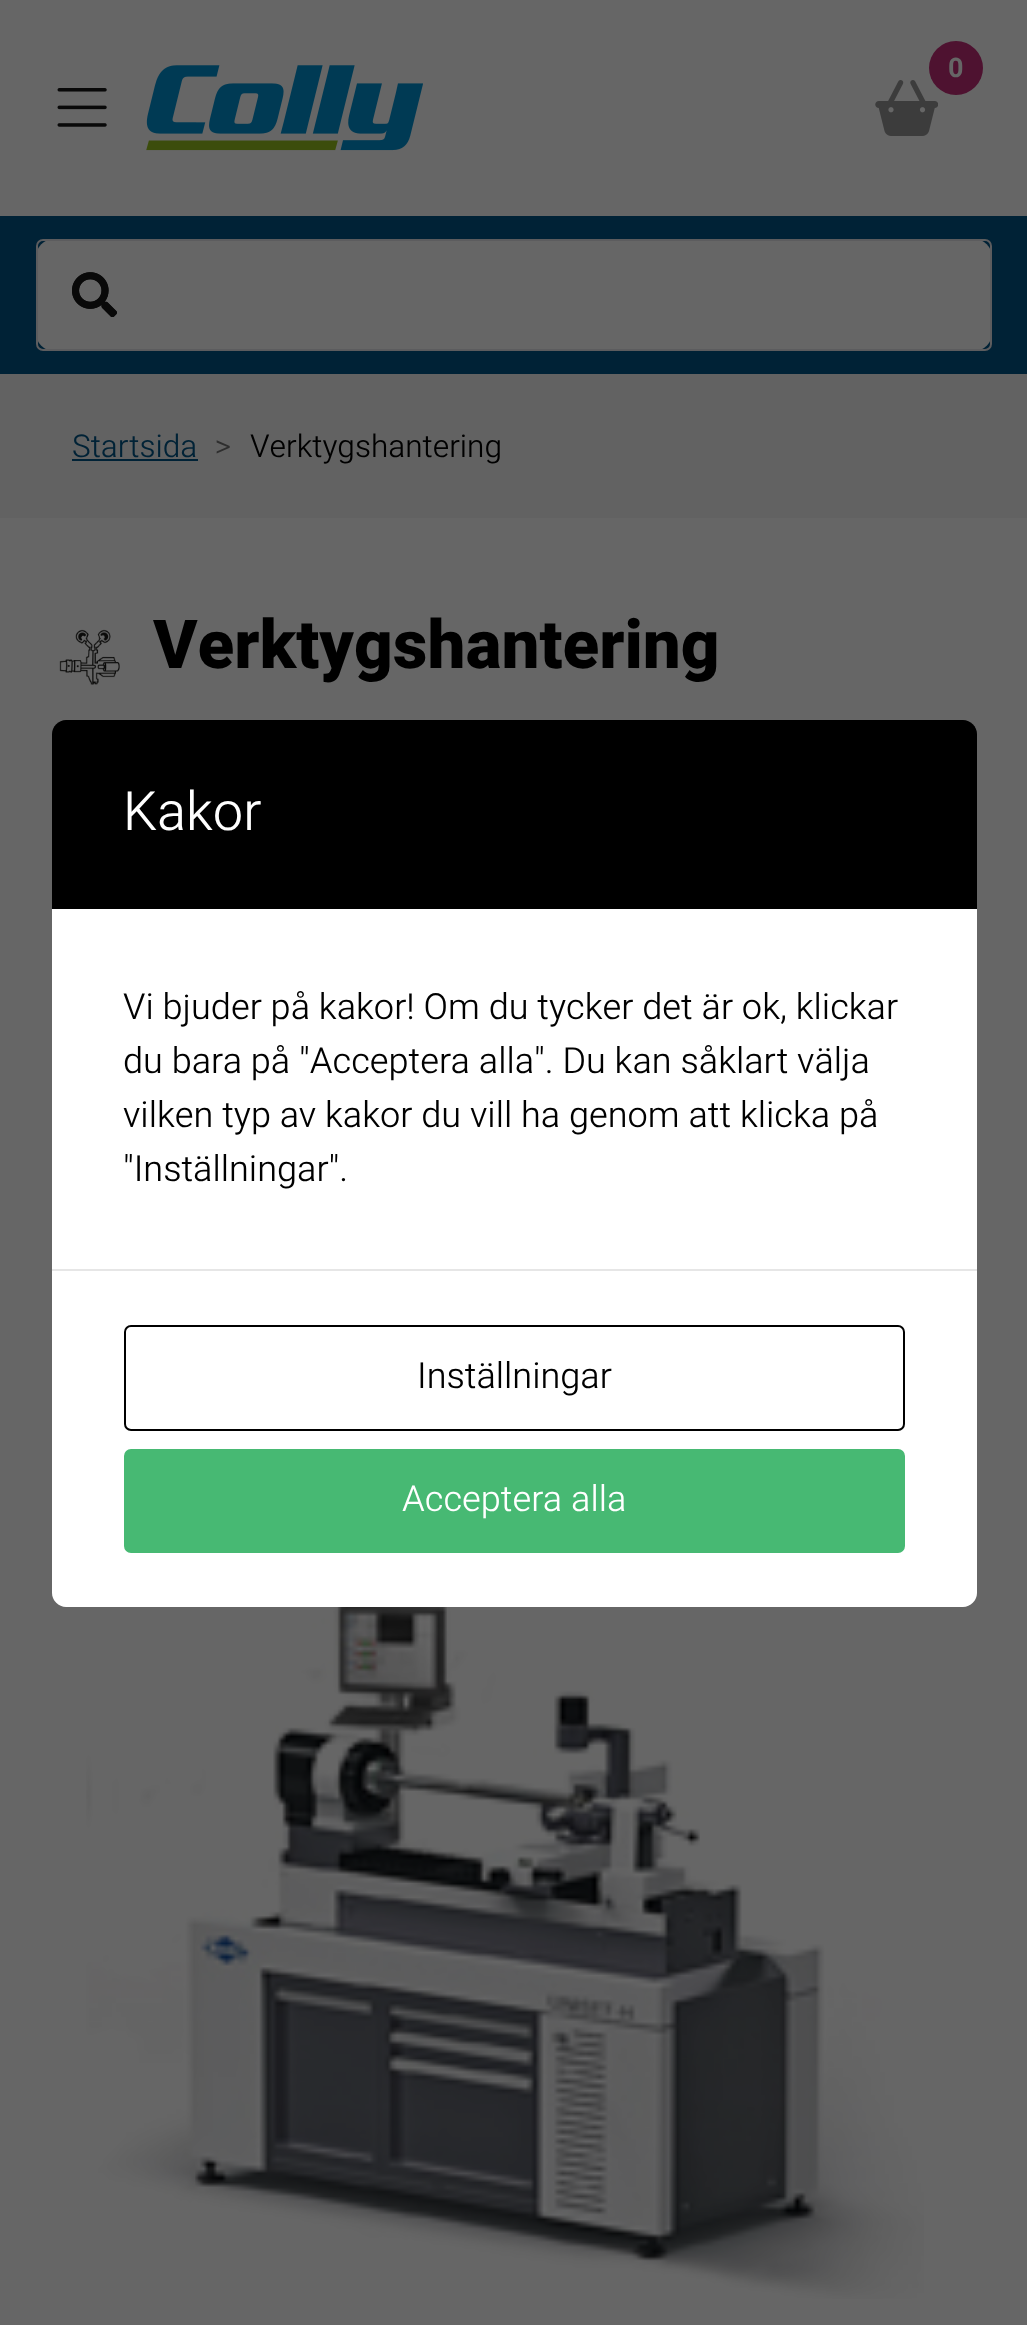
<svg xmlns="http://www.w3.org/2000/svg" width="1027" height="2325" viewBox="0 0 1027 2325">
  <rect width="100%" height="100%" fill="#666666"/>
  <image x="57" y="88" width="50" height="39" href="img1.png"/>
  <image x="146" y="65" width="277" height="86" href="img2.png"/>
  <image x="875" y="80" width="63" height="56" href="img3.png"/>
  <circle cx="956" cy="68" r="27" fill="#4e1230"/>
  <text x="948" y="77" font-family="Heebo" font-size="27" font-weight="bold" fill="#666666">0</text>
  <rect x="0" y="216" width="1027" height="158" fill="#002236"/>
  <rect x="36" y="239" width="956" height="112" rx="18" fill="#666666"/>
  <image x="72" y="272" width="45" height="45" href="img5.png"/>
  <rect x="37" y="240" width="954" height="110" rx="6" fill="none" stroke="#5c5c5e" stroke-width="2"/>
  <image x="72" y="272" width="45" height="45" href="img4.png"/>
  <rect x="0" y="374" width="1027" height="144" fill="#626262"/>
  <text x="72" y="457" font-family="Heebo" font-size="31.5" font-weight="300" fill="#002236">Startsida</text>
  <rect x="72" y="459" width="126" height="2" fill="#002236"/>
  <text x="215" y="457" font-family="Heebo" font-size="31.5" font-weight="300" fill="#2e2e2e">&gt;</text>
  <text x="250" y="457" font-family="Heebo" font-size="31.5" font-weight="300" fill="#000000">Verktygshantering</text>
  <image x="59" y="629" width="61" height="56" href="img6.png"/>
  <text x="153" y="668" font-family="Heebo" font-size="67.5" font-weight="800" fill="#000000">Verktygshantering</text>
  <image x="86" y="1607" width="838" height="692" href="img7.png"/>
  <path d="M66 720H963C970.5 720 977 726.5 977 734V909H52V734C52 726.5 58.5 720 66 720Z" fill="#000000"/>
  <text x="123" y="830" font-family="Heebo" font-size="54" font-weight="300" fill="#ffffff">Kakor</text>
  <rect x="52" y="909" width="925" height="360" fill="#ffffff"/>
  <text x="123" y="1019" font-family="Heebo" font-size="36" font-weight="300" fill="#000000">Vi bjuder på kakor! Om du tycker det är ok, klickar</text>
  <text x="123" y="1073" font-family="Heebo" font-size="36" font-weight="300" fill="#000000">du bara på "Acceptera alla". Du kan såklart välja</text>
  <text x="123" y="1127" font-family="Heebo" font-size="36" font-weight="300" fill="#000000">vilken typ av kakor du vill ha genom att klicka på</text>
  <text x="123" y="1181" font-family="Heebo" font-size="36" font-weight="300" fill="#000000">"Inställningar".</text>
  <path d="M52 1271H977V1593C977 1600.5 970.5 1607 963 1607H66C58.5 1607 52 1600.5 52 1593Z" fill="#ffffff"/>
  <rect x="52" y="1269" width="925" height="2" fill="#e6e6e6"/>
  <rect x="125" y="1326" width="779" height="104" rx="6" fill="none" stroke="#000000" stroke-width="2"/>
  <text x="417" y="1388" font-family="Heebo" font-size="36" font-weight="300" fill="#000000">Inställningar</text>
  <rect x="125" y="1450" width="779" height="102" rx="6" fill="#47b973" stroke="#47b973" stroke-width="2"/>
  <text x="402" y="1511" font-family="Heebo" font-size="36" font-weight="300" fill="#ffffff">Acceptera alla</text>
</svg>
